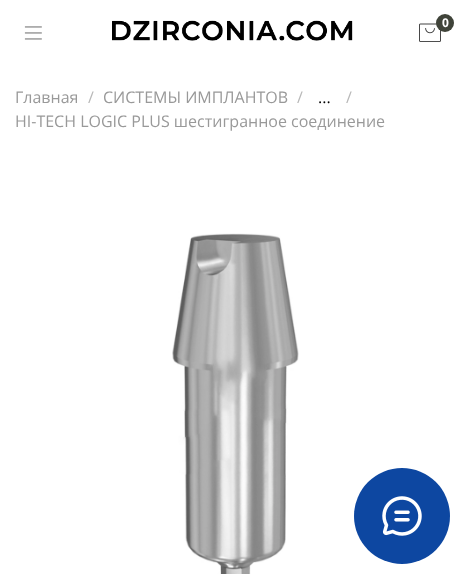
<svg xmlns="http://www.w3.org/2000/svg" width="470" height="574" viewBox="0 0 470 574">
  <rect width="100%" height="100%" fill="#ffffff"/>
  <image x="24" y="26" width="18" height="14" href="img1.png"/>
  <image x="112" y="20" width="241" height="21" href="img2.png"/>
  <image x="419" y="23" width="22" height="19" href="img3.png"/>
  <circle cx="445" cy="23" r="9" fill="#3f4339"/>
  <text x="442" y="27" font-family="Open Sans" font-size="12" font-weight="bold" fill="#ffffff">0</text>
  <text x="15" y="103" font-family="Open Sans" font-size="16" fill="#999999">Главная</text>
  <text x="88" y="103" font-family="Open Sans" font-size="16" fill="#b8b8b8">/</text>
  <text x="103" y="103" font-family="Open Sans" font-size="16" fill="#999999">СИСТЕМЫ ИМПЛАНТОВ</text>
  <text x="297" y="103" font-family="Open Sans" font-size="16" fill="#b8b8b8">/</text>
  <text x="318" y="103" font-family="Open Sans" font-size="16" fill="#000000">...</text>
  <text x="346" y="103" font-family="Open Sans" font-size="16" fill="#b8b8b8">/</text>
  <text x="15" y="127" font-family="Open Sans" font-size="16" fill="#999999">HI-TECH LOGIC PLUS шестигранное соединение</text>
  <image x="172" y="233" width="127" height="341" href="img4.png"/>
  <circle cx="402" cy="516" r="48" fill="#0d47a1"/>
  <image x="382" y="496" width="40" height="40" href="img5.png"/>
</svg>
